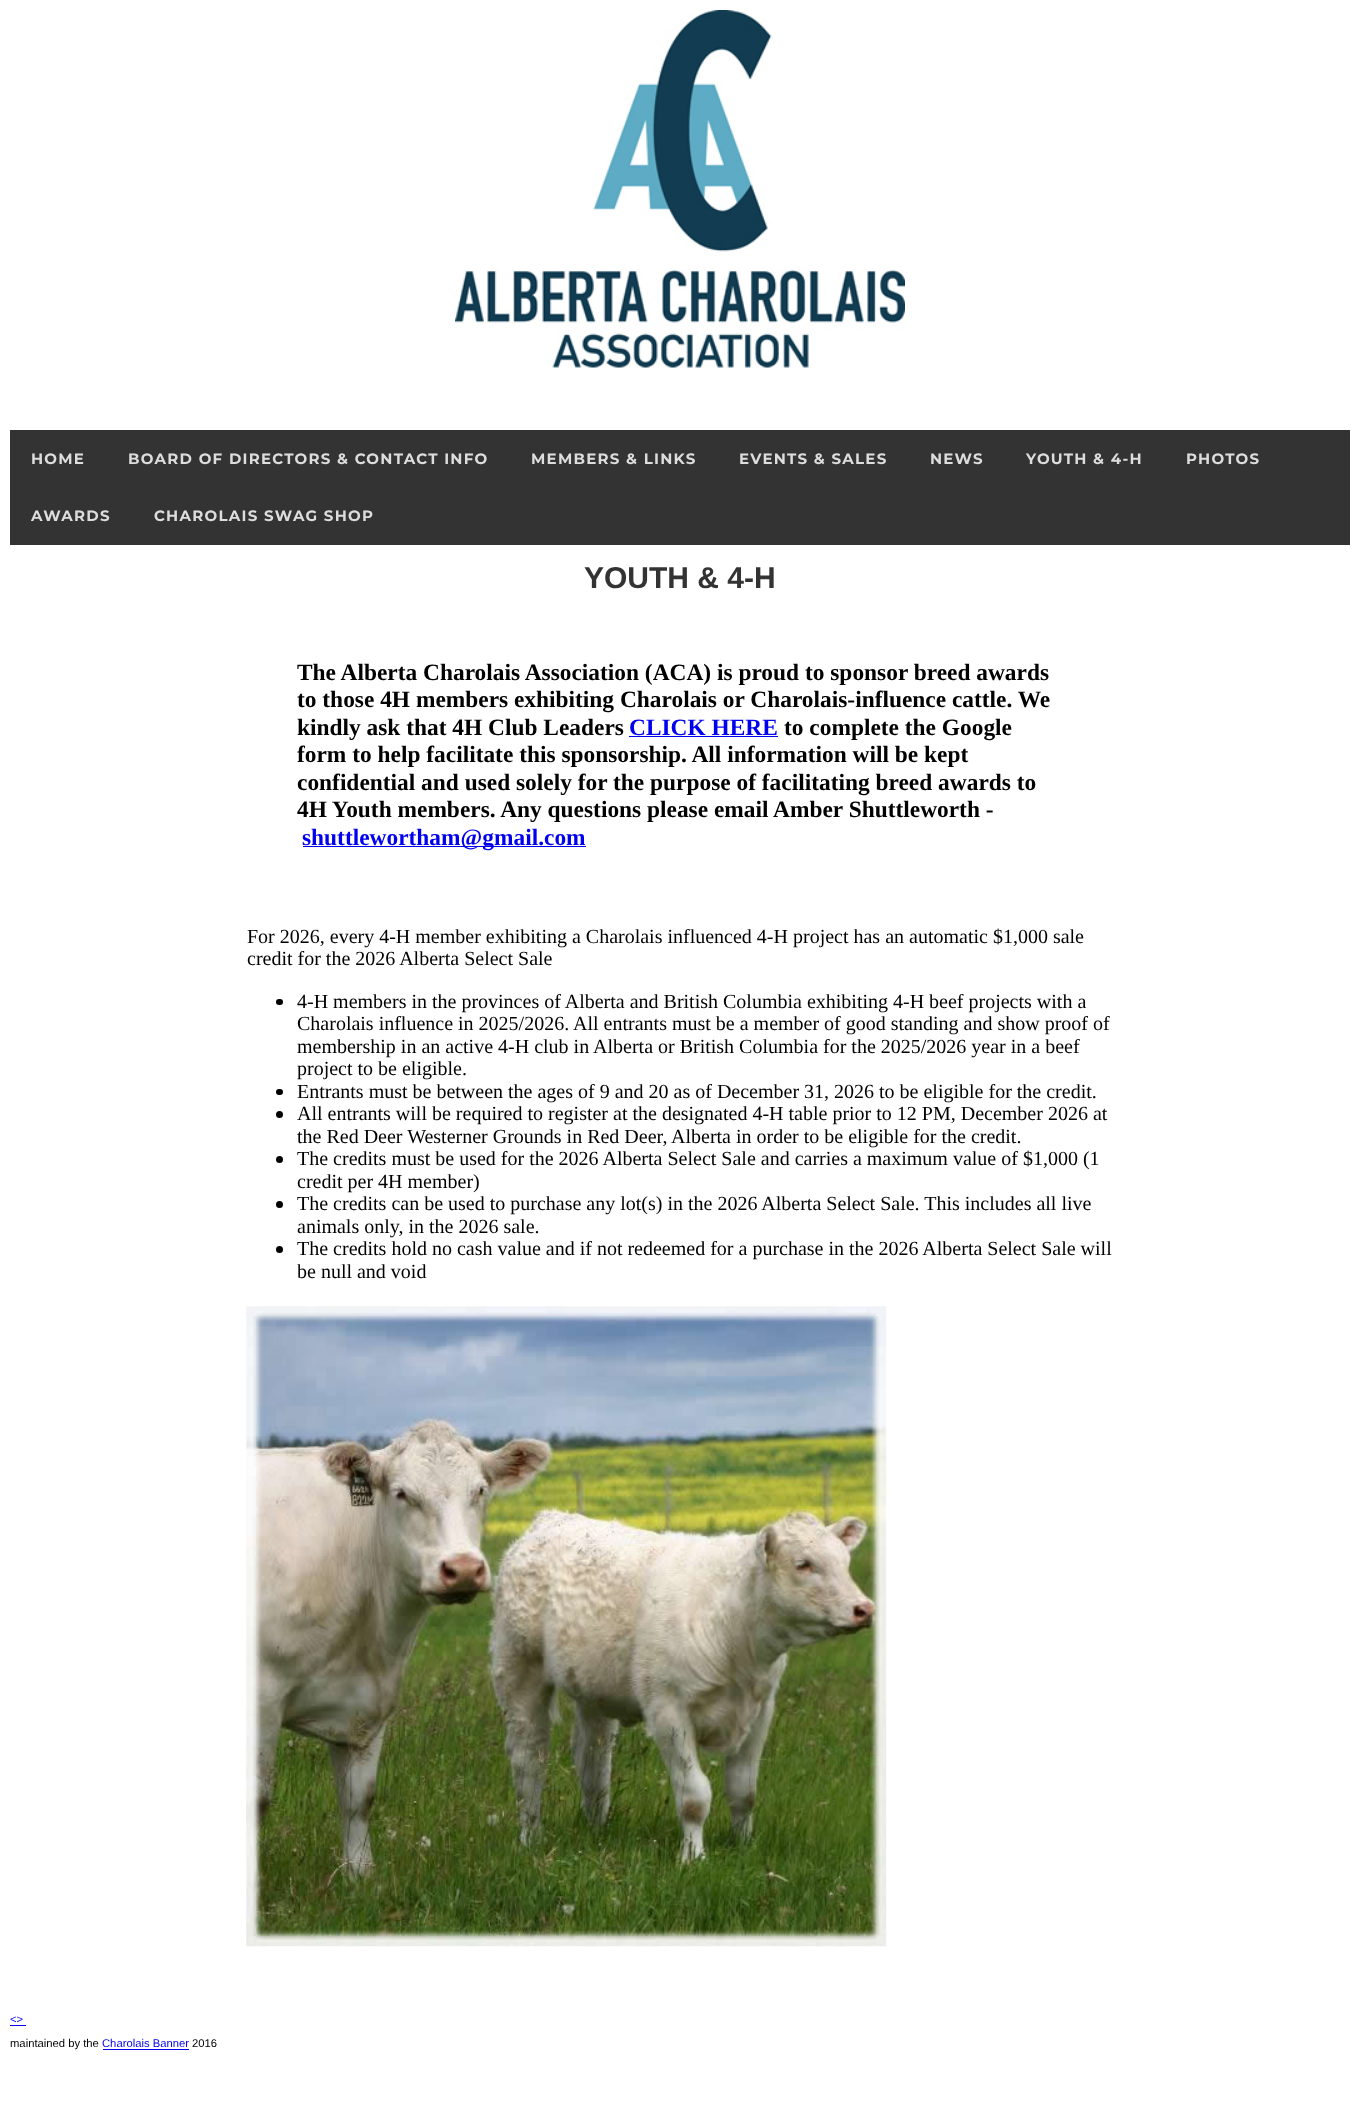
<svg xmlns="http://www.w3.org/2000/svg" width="1359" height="2124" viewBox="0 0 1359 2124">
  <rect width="100%" height="100%" fill="#ffffff"/>
  <image x="455" y="10" width="450" height="358" href="img1.png"/>
  <rect x="10" y="430" width="1340" height="115" fill="#333333"/>
  <text x="31" y="464" font-family="Montserrat" font-size="15" font-weight="bold" letter-spacing="1.25" fill="#dddddd">HOME</text>
  <text x="128" y="464" font-family="Montserrat" font-size="15" font-weight="bold" letter-spacing="1.25" fill="#dddddd">BOARD OF DIRECTORS &amp; CONTACT INFO</text>
  <text x="531" y="464" font-family="Montserrat" font-size="15" font-weight="bold" letter-spacing="1.25" fill="#dddddd">MEMBERS &amp; LINKS</text>
  <text x="739" y="464" font-family="Montserrat" font-size="15" font-weight="bold" letter-spacing="1.25" fill="#dddddd">EVENTS &amp; SALES</text>
  <text x="930" y="464" font-family="Montserrat" font-size="15" font-weight="bold" letter-spacing="1.25" fill="#dddddd">NEWS</text>
  <text x="1026" y="464" font-family="Montserrat" font-size="15" font-weight="bold" letter-spacing="1.25" fill="#dddddd">YOUTH &amp; 4-H</text>
  <text x="1186" y="464" font-family="Montserrat" font-size="15" font-weight="bold" letter-spacing="1.25" fill="#dddddd">PHOTOS</text>
  <text x="31" y="521" font-family="Montserrat" font-size="15" font-weight="bold" letter-spacing="1.25" fill="#dddddd">AWARDS</text>
  <text x="154" y="521" font-family="Montserrat" font-size="15" font-weight="bold" letter-spacing="1.25" fill="#dddddd">CHAROLAIS SWAG SHOP</text>
  <text x="584" y="588" font-family="Liberation Sans" font-size="30" font-weight="bold" fill="#333333">YOUTH &amp; 4-H</text>
  <text x="297" y="680" font-family="Liberation Serif" font-size="23.4" font-weight="bold" fill="#000000">The Alberta Charolais Association (ACA) is proud to sponsor breed awards</text>
  <text x="297" y="707" font-family="Liberation Serif" font-size="23.4" font-weight="bold" fill="#000000">to those 4H members exhibiting Charolais or Charolais-influence cattle. We</text>
  <text x="297" y="735" font-family="Liberation Serif" font-size="23.4" font-weight="bold" fill="#000000">kindly ask that 4H Club Leaders</text>
  <text x="629" y="735" font-family="Liberation Serif" font-size="23.4" font-weight="bold" fill="#0000ee">CLICK HERE</text>
  <rect x="629" y="736" width="149" height="1" fill="#0000ee"/>
  <text x="784" y="735" font-family="Liberation Serif" font-size="23.4" font-weight="bold" fill="#000000">to complete the Google</text>
  <text x="297" y="762" font-family="Liberation Serif" font-size="23.4" font-weight="bold" fill="#000000">form to help facilitate this sponsorship. All information will be kept</text>
  <text x="297" y="790" font-family="Liberation Serif" font-size="23.4" font-weight="bold" fill="#000000">confidential and used solely for the purpose of facilitating breed awards to</text>
  <text x="297" y="817" font-family="Liberation Serif" font-size="23.4" font-weight="bold" fill="#000000">4H Youth members. Any questions please email Amber Shuttleworth -</text>
  <rect x="303" y="846" width="283" height="1" fill="#0000ee"/>
  <text x="302" y="845" font-family="Liberation Serif" font-size="23.4" font-weight="bold" fill="#0000ee">shuttlewortham@gmail.com</text>
  <text x="247" y="943" font-family="Liberation Serif" font-size="20" fill="#000000">For 2026, every 4-H member exhibiting a Charolais influenced 4-H project has an automatic $1,000 sale</text>
  <text x="247" y="965" font-family="Liberation Serif" font-size="20" fill="#000000">credit for the 2026 Alberta Select Sale</text>
  <rect x="276" y="999" width="7" height="6" rx="3" fill="#000000"/>
  <text x="297" y="1008" font-family="Liberation Serif" font-size="20" fill="#000000">4-H members in the provinces of Alberta and British Columbia exhibiting 4-H beef projects with a</text>
  <text x="297" y="1030" font-family="Liberation Serif" font-size="20" fill="#000000">Charolais influence in 2025/2026. All entrants must be a member of good standing and show proof of</text>
  <text x="297" y="1053" font-family="Liberation Serif" font-size="20" fill="#000000">membership in an active 4-H club in Alberta or British Columbia for the 2025/2026 year in a beef</text>
  <text x="297" y="1075" font-family="Liberation Serif" font-size="20" fill="#000000">project to be eligible.</text>
  <rect x="276" y="1089" width="7" height="6" rx="3" fill="#000000"/>
  <text x="297" y="1098" font-family="Liberation Serif" font-size="20" fill="#000000">Entrants must be between the ages of 9 and 20 as of December 31, 2026 to be eligible for the credit.</text>
  <circle cx="279.5" cy="1114.5" r="3.5" fill="#000000"/>
  <text x="297" y="1120" font-family="Liberation Serif" font-size="20" fill="#000000">All entrants will be required to register at the designated 4-H table prior to 12 PM, December 2026 at</text>
  <text x="297" y="1143" font-family="Liberation Serif" font-size="20" fill="#000000">the Red Deer Westerner Grounds in Red Deer,</text>
  <text x="671" y="1143" font-family="Liberation Serif" font-size="20" fill="#000000">Alberta in order to be eligible for the credit.</text>
  <circle cx="279.5" cy="1159.5" r="3.5" fill="#000000"/>
  <text x="297" y="1165" font-family="Liberation Serif" font-size="20" fill="#000000">The credits must be used for the 2026 Alberta Select Sale and carries a maximum value of $1,000 (1</text>
  <text x="297" y="1188" font-family="Liberation Serif" font-size="20" fill="#000000">credit per 4H member)</text>
  <circle cx="279.5" cy="1204.5" r="3.5" fill="#000000"/>
  <text x="297" y="1210" font-family="Liberation Serif" font-size="20" fill="#000000">The credits can be used to purchase any lot(s) in the 2026 Alberta Select Sale. This includes all live</text>
  <text x="297" y="1233" font-family="Liberation Serif" font-size="20" fill="#000000">animals only, in the 2026 sale.</text>
  <circle cx="279.5" cy="1249.5" r="3.5" fill="#000000"/>
  <text x="297" y="1255" font-family="Liberation Serif" font-size="20" fill="#000000">The credits hold no cash value and if not redeemed for a purchase in the 2026 Alberta Select Sale will</text>
  <text x="297" y="1278" font-family="Liberation Serif" font-size="20" fill="#000000">be null and void</text>
  <image x="246" y="1306" width="641" height="641" href="img2.png"/>
  <text x="10" y="2023" font-family="Liberation Sans" font-size="11.25" fill="#0000ee">&lt;&gt;</text>
  <rect x="10" y="2025" width="16" height="1" fill="#0000ee"/>
  <text x="10" y="2047" font-family="Liberation Sans" font-size="11.25" fill="#000000">maintained by the</text>
  <text x="102" y="2047" font-family="Liberation Sans" font-size="11.25" fill="#0000ee">Charolais Banner</text>
  <rect x="103" y="2049" width="86" height="1" fill="#0000ee"/>
  <text x="192" y="2047" font-family="Liberation Sans" font-size="11.25" fill="#000000">2016</text>
</svg>
